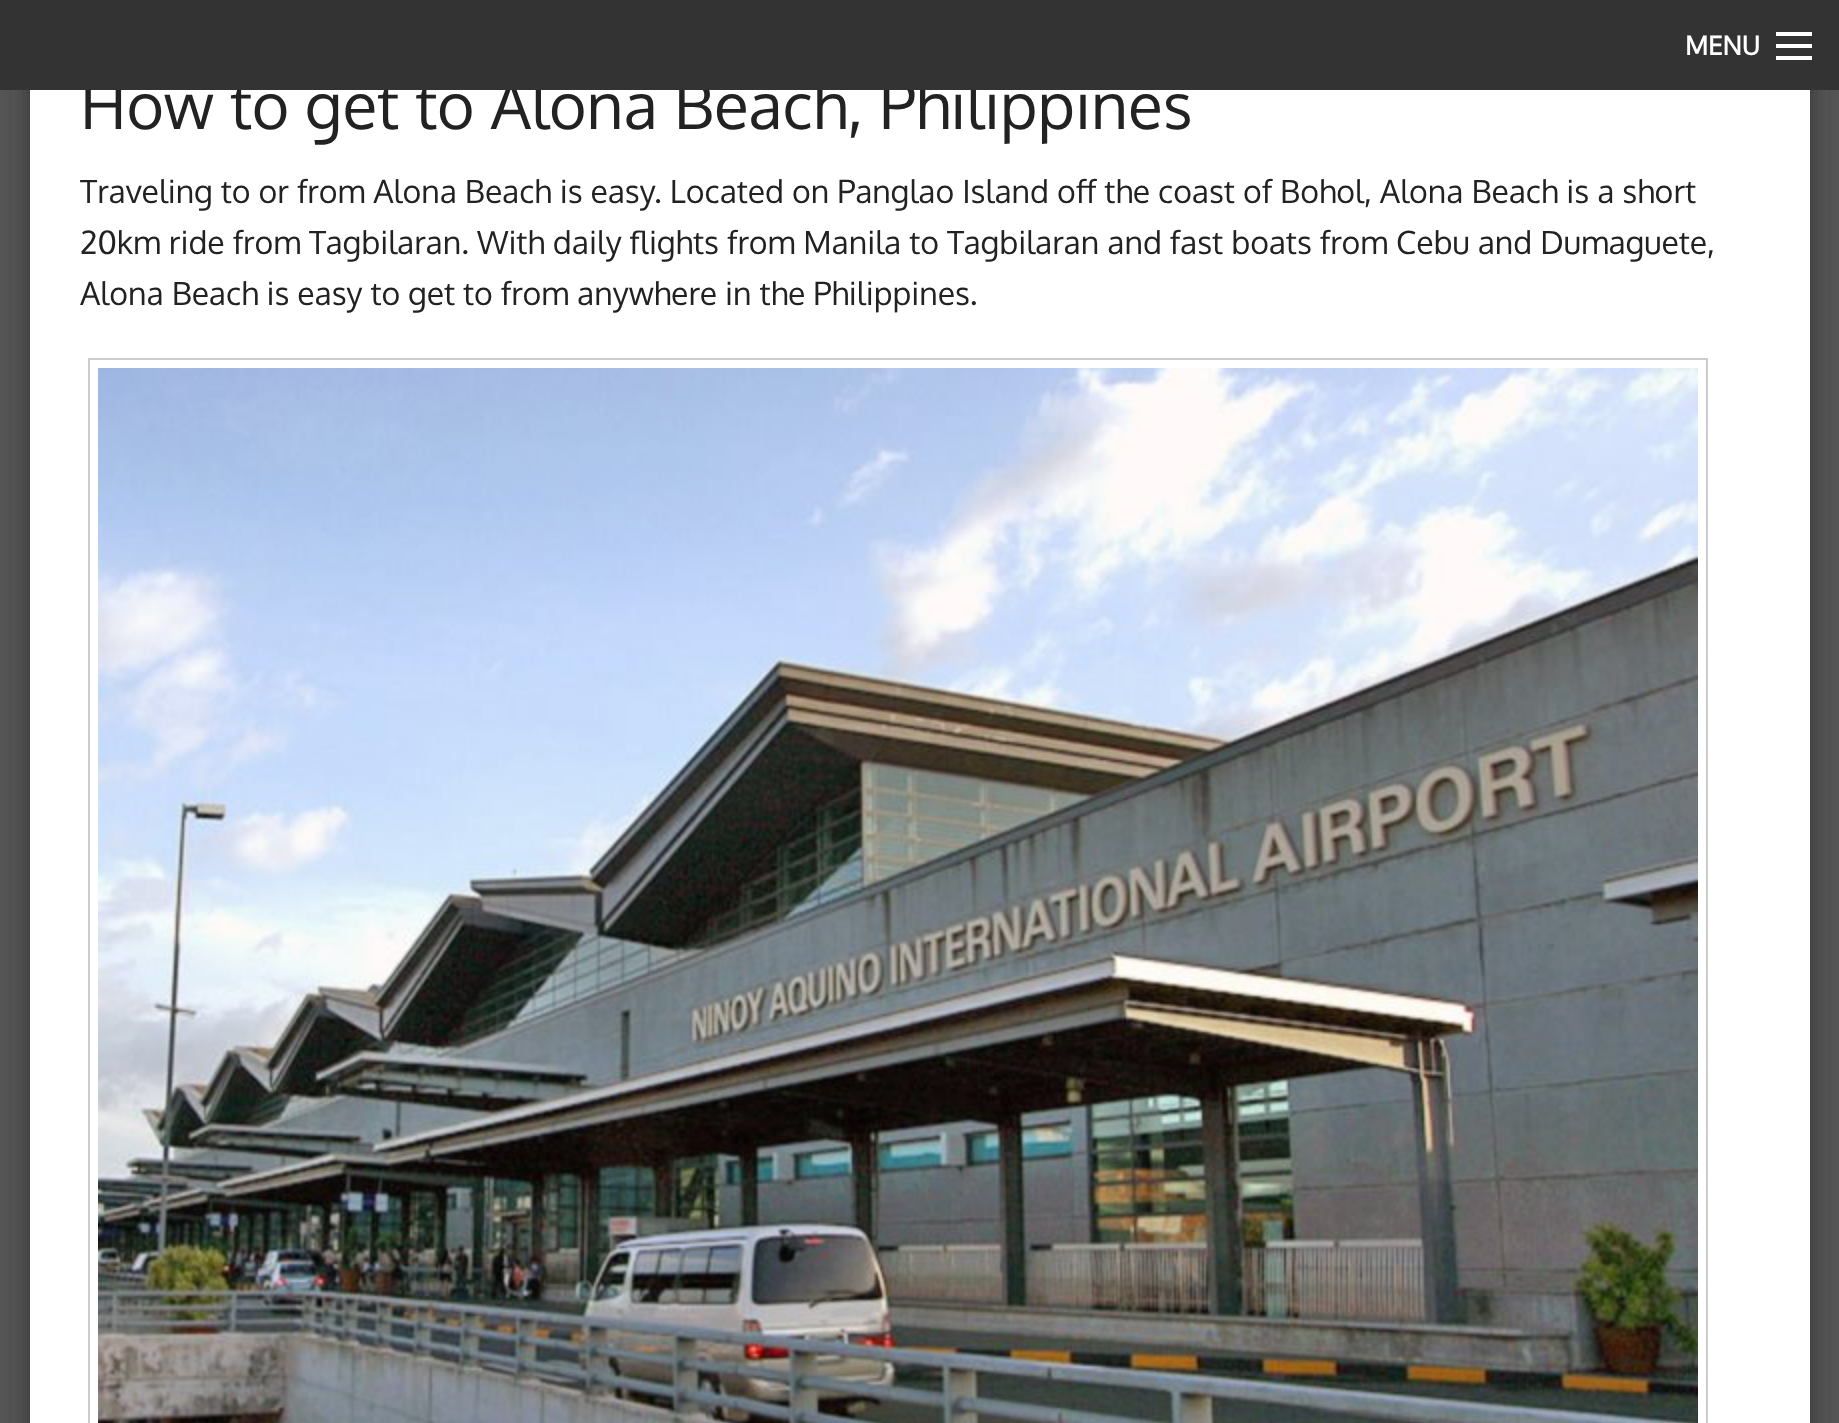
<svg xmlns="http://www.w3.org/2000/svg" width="1839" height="1423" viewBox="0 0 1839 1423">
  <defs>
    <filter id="blur1" x="-50%" y="-200%" width="200%" height="500%"><feGaussianBlur stdDeviation="12"/></filter>
  </defs>
  <rect width="100%" height="100%" fill="#555555"/>
  <rect x="30" y="-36" width="1780" height="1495" fill="#333333" filter="url(#blur1)"/>
  <rect x="30" y="90" width="1780" height="1333" fill="#ffffff"/>
  <text x="80" y="129" font-family="Oxygen" font-size="64" fill="#222222">How to get to Alona Beach, Philippines</text>
  <rect x="0" y="0" width="1839" height="90" fill="#333333"/>
  <text x="1685" y="55" font-family="Oxygen" font-size="26" font-weight="bold" fill="#ffffff">MENU</text>
  <rect x="1776" y="56" width="36" height="4" fill="#ffffff"/>
  <rect x="1776" y="44" width="36" height="4" fill="#ffffff"/>
  <rect x="1776" y="32" width="36" height="4" fill="#ffffff"/>
  <text x="80" y="203" font-family="Oxygen" font-size="32" fill="#222222">Traveling to or from Alona Beach is easy. Located on Panglao Island off the coast of Bohol, Alona Beach is a short</text>
  <text x="80" y="254" font-family="Oxygen" font-size="32" fill="#222222">20km ride from Tagbilaran. With daily flights from Manila to Tagbilaran and fast boats from Cebu and Dumaguete,</text>
  <text x="80" y="305" font-family="Oxygen" font-size="32" fill="#222222">Alona Beach is easy to get to from anywhere in the Philippines.</text>
  <rect x="89" y="359" width="1618" height="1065" fill="none" stroke="#cccccc" stroke-width="2"/>
  <image x="98" y="368" width="1600" height="1055" href="img1.png"/>
</svg>
